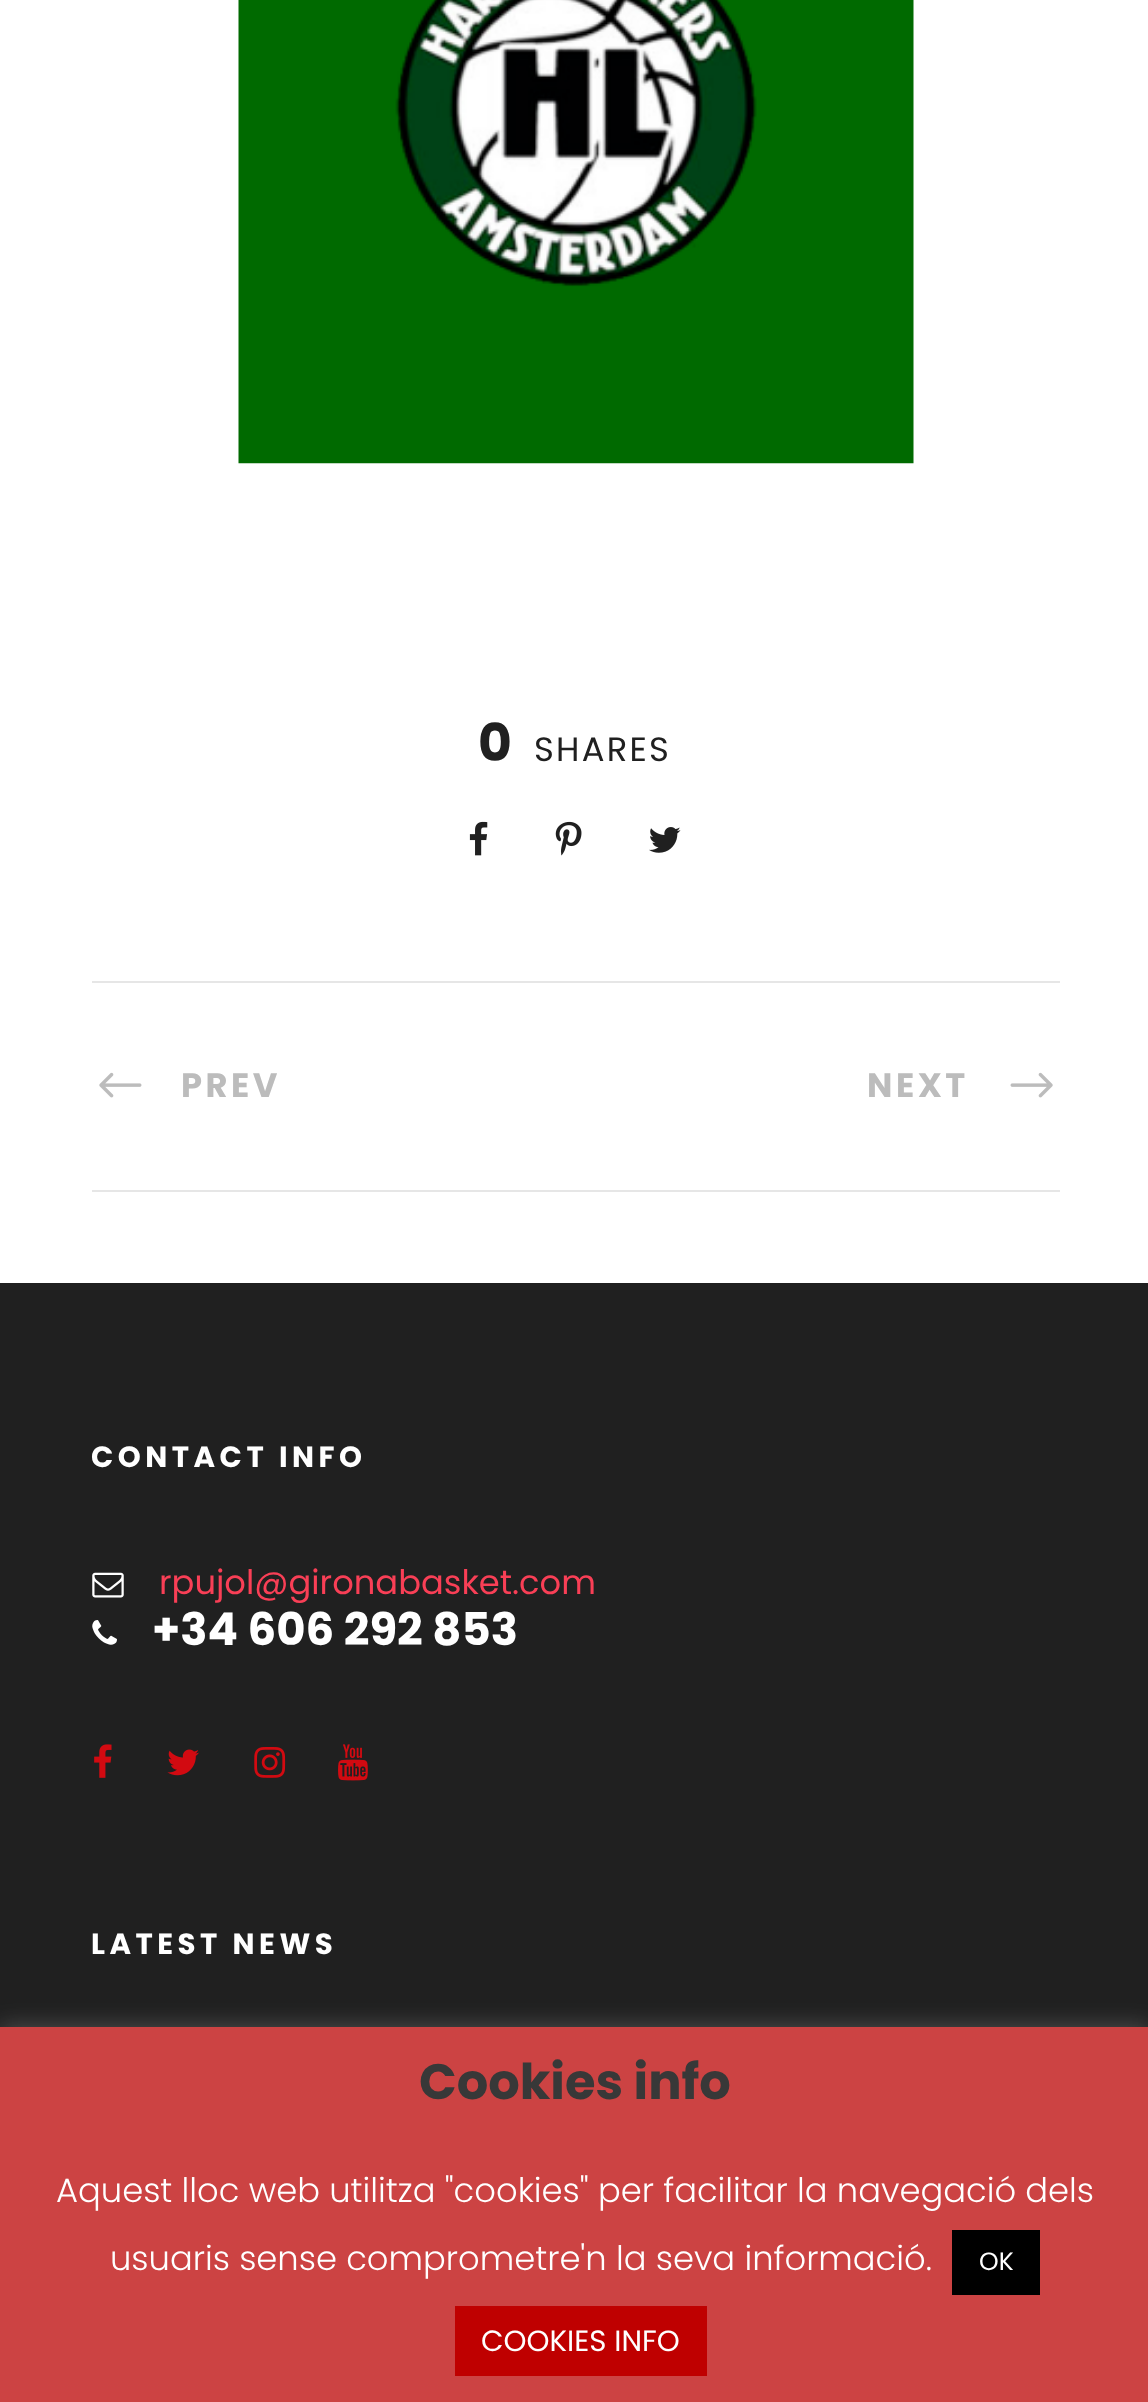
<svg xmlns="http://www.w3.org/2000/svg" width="1148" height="2402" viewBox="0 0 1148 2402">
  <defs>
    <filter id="blur1" x="-50%" y="-200%" width="200%" height="500%"><feGaussianBlur stdDeviation="11"/></filter>
  </defs>
  <rect width="100%" height="100%" fill="#ffffff"/>
  <image x="238" y="0" width="676" height="464" href="img1.png"/>
  <text x="478" y="761" font-family="Poppins" font-size="52" font-weight="bold" fill="#202020">0</text>
  <text x="534" y="761" font-family="Poppins" font-size="33.75" letter-spacing="2.25" fill="#202020">SHARES</text>
  <image x="469" y="821" width="19" height="35" href="img2.png"/>
  <image x="555" y="821" width="27" height="35" href="img3.png"/>
  <image x="649" y="827" width="32" height="26" href="img4.png"/>
  <rect x="92" y="981" width="968" height="2" fill="#e6e6e6"/>
  <rect x="92" y="1190" width="968" height="2" fill="#e6e6e6"/>
  <image x="99" y="1072" width="43" height="26" href="img5.png"/>
  <text x="181" y="1097" font-family="Poppins" font-size="33.75" font-weight="bold" letter-spacing="3.5" fill="#bcbcbc">PREV</text>
  <text x="867" y="1097" font-family="Poppins" font-size="33.75" font-weight="bold" letter-spacing="3.5" fill="#bcbcbc">NEXT</text>
  <image x="1010" y="1072" width="43" height="26" href="img6.png"/>
  <rect x="0" y="1283" width="1148" height="744" fill="#202020"/>
  <text x="91" y="1467" font-family="Poppins" font-size="29.25" font-weight="bold" letter-spacing="4.5" fill="#ffffff">CONTACT INFO</text>
  <image x="92" y="1572" width="32" height="26" href="img7.png"/>
  <text x="159" y="1594" font-family="Poppins" font-size="33.75" fill="#f93f56">rpujol@gironabasket.com</text>
  <image x="92" y="1620" width="25" height="25" href="img8.png"/>
  <text x="152" y="1645" font-family="Poppins" font-size="45" font-weight="bold" fill="#ffffff">+34 606 292 853</text>
  <image x="94" y="1744" width="18" height="34" href="img9.png"/>
  <image x="167" y="1749" width="32" height="27" href="img10.png"/>
  <image x="254" y="1747" width="32" height="31" href="img11.png"/>
  <image x="338" y="1744" width="30" height="37" href="img12.png"/>
  <text x="91" y="1954" font-family="Poppins" font-size="29.25" font-weight="bold" letter-spacing="4.5" fill="#ffffff">LATEST NEWS</text>
  <rect x="0" y="2025" width="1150" height="376" fill="#acabab" fill-opacity="0.3" filter="url(#blur1)"/>
  <rect x="0" y="2027" width="1148" height="375" fill="#cc4343"/>
  <text x="419" y="2099" font-family="Poppins" font-size="49.5" font-weight="bold" fill="#383838">Cookies info</text>
  <text x="56" y="2202" font-family="Poppins" font-size="33.75" font-weight="300" fill="#ffffff">Aquest lloc web utilitza "cookies" per facilitar la navegació dels</text>
  <text x="110" y="2270" font-family="Poppins" font-size="33.75" font-weight="300" fill="#ffffff">usuaris sense comprometre'n la seva informació.</text>
  <rect x="952" y="2230" width="88" height="65" fill="#000000"/>
  <text x="979" y="2270" font-family="Poppins" font-size="25" fill="#ffffff">OK</text>
  <rect x="455" y="2306" width="252" height="70" fill="#bf0000"/>
  <text x="481" y="2351" font-family="Poppins" font-size="29.25" fill="#ffffff">COOKIES INFO</text>
</svg>
